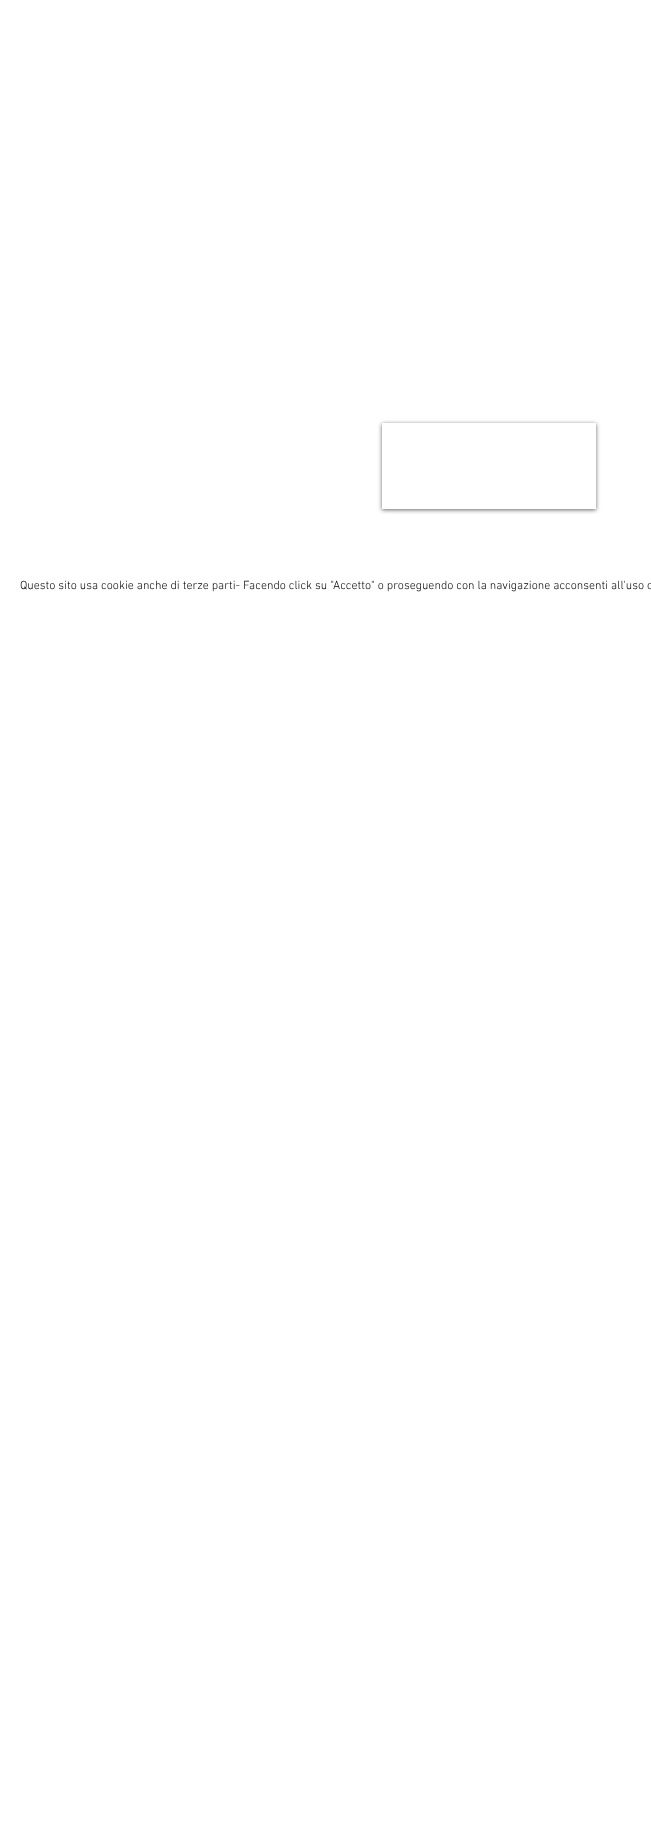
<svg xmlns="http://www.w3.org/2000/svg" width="651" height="1831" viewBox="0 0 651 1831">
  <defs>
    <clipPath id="clip1"><path d="M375 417H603V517H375ZM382 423H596V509H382Z" clip-rule="evenodd"/></clipPath>
    <filter id="blur1" x="-50%" y="-200%" width="200%" height="500%"><feGaussianBlur stdDeviation="2"/></filter>
  </defs>
  <rect width="100%" height="100%" fill="#ffffff"/>
  <g clip-path="url(#clip1)">
    <rect x="382" y="424" width="214" height="86" fill="#000000" fill-opacity="0.6" filter="url(#blur1)"/>
  </g>
  <text x="20" y="589" font-family="'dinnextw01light'" font-size="12" font-weight="300" fill="#000000">Questo sito usa cookie anche di terze parti- Facendo click su "Accetto" o proseguendo con la navigazione acconsenti all'uso d</text>
</svg>
